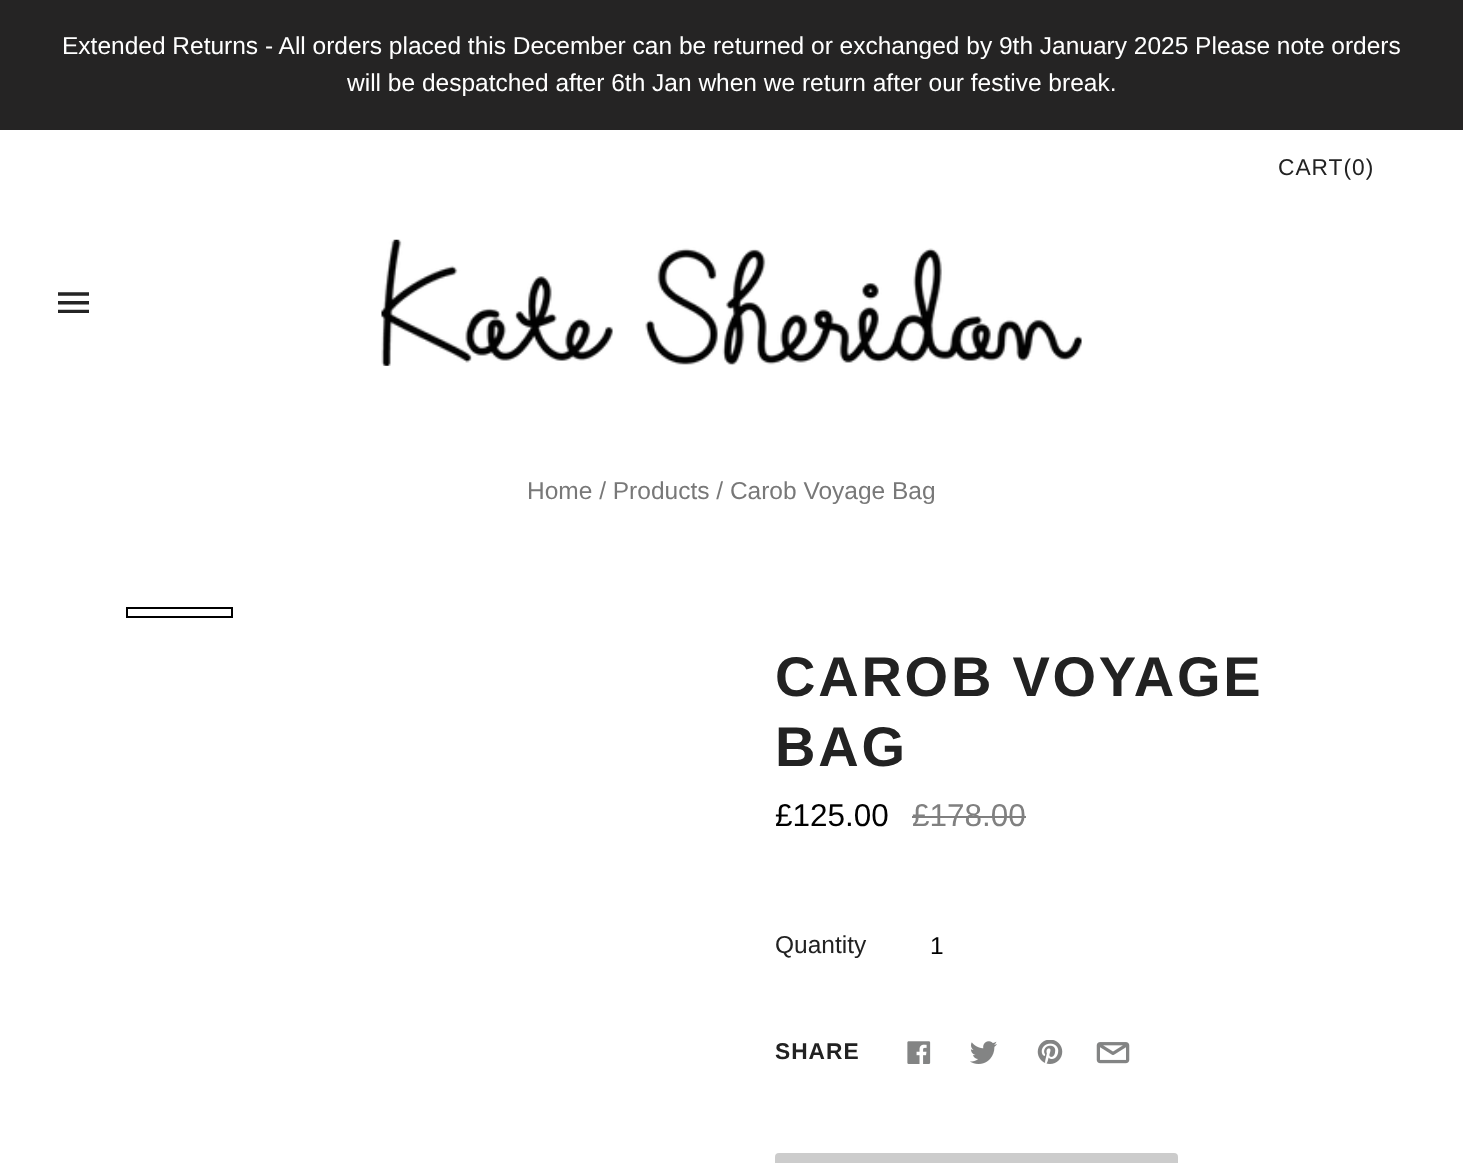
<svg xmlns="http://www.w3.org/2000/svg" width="1463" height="1163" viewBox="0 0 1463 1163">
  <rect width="100%" height="100%" fill="#ffffff"/>
  <rect x="0" y="0" width="1463" height="130" fill="#252424"/>
  <text x="62" y="54" font-family="Liberation Sans" font-size="24.5" fill="#ffffff">Extended Returns - All orders placed this December can be returned or exchanged by 9th January 2025 Please note orders</text>
  <text x="347" y="91" font-family="Liberation Sans" font-size="24.5" fill="#ffffff">will be despatched after 6th Jan when we return after our festive break.</text>
  <text x="1278" y="175" font-family="Liberation Sans" font-size="22.75" letter-spacing="1" fill="#222222">CART(0)</text>
  <image x="58" y="292" width="31" height="21" href="img1.png"/>
  <image x="381" y="239" width="701" height="127" href="img2.png"/>
  <text x="527" y="499" font-family="Liberation Sans" font-size="24.5" fill="#787878">Home / Products / Carob Voyage Bag</text>
  <rect x="127" y="608" width="105" height="9" fill="none" stroke="#000000" stroke-width="2"/>
  <text x="775" y="696" font-family="Liberation Sans" font-size="56" font-weight="bold" letter-spacing="2.75" fill="#222222">CAROB VOYAGE</text>
  <text x="775" y="766" font-family="Liberation Sans" font-size="56" font-weight="bold" letter-spacing="2.75" fill="#222222">BAG</text>
  <text x="775" y="826" font-family="Liberation Sans" font-size="31.5" fill="#000000">£125.00</text>
  <text x="912" y="826" font-family="Liberation Sans" font-size="31.5" fill="#808080">£178.00</text>
  <rect x="912" y="816" width="114" height="2" fill="#808080"/>
  <text x="775" y="953" font-family="Liberation Sans" font-size="24.5" fill="#222222">Quantity</text>
  <text x="930" y="954" font-family="Liberation Sans" font-size="24.5" fill="#000000">1</text>
  <text x="775" y="1059" font-family="Liberation Sans" font-size="22.75" font-weight="bold" letter-spacing="1" fill="#222222">SHARE</text>
  <image x="907" y="1041" width="24" height="23" href="img3.png"/>
  <image x="970" y="1041" width="27" height="23" href="img4.png"/>
  <image x="1037" y="1040" width="26" height="24" href="img5.png"/>
  <image x="1096" y="1042" width="34" height="22" href="img6.png"/>
  <rect x="775" y="1153" width="403" height="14" rx="4" fill="#cccccc"/>
</svg>
